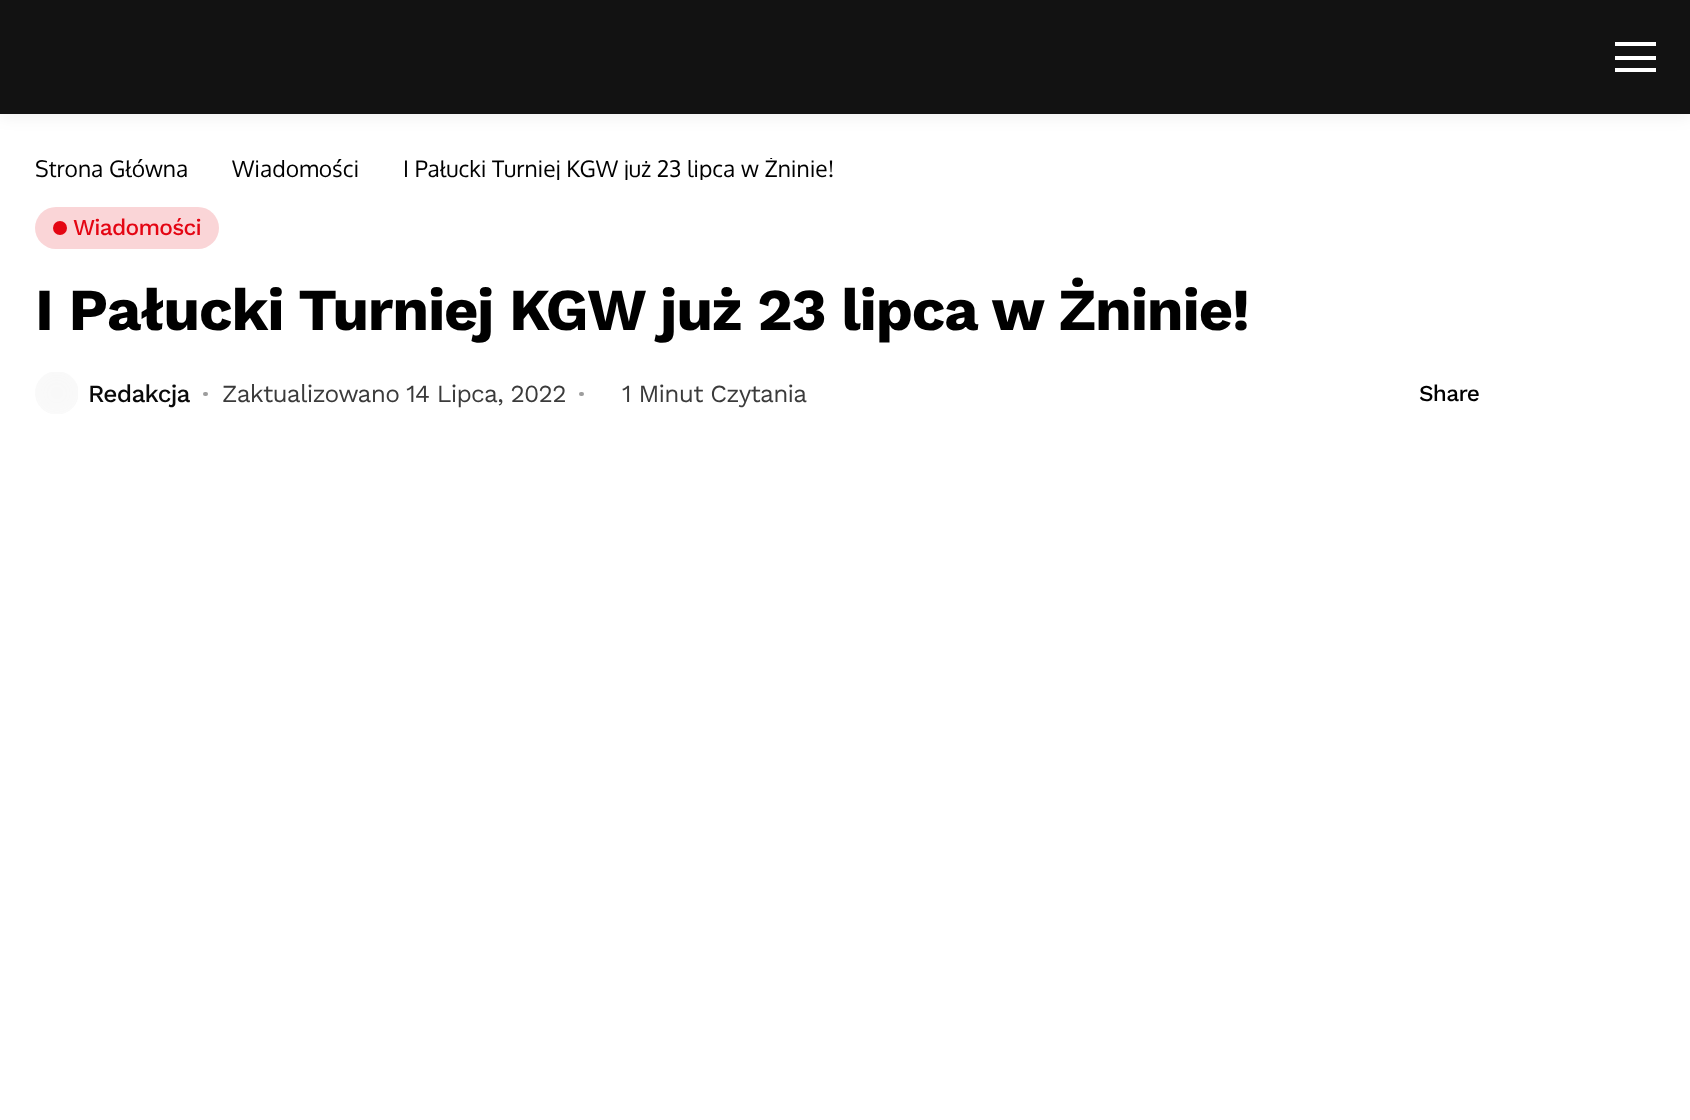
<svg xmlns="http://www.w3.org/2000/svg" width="1690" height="1120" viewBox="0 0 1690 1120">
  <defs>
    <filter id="blur1" x="-50%" y="-200%" width="200%" height="500%"><feGaussianBlur stdDeviation="8"/></filter>
    <clipPath id="clip1"><rect x="403" y="158" width="432" height="22"/></clipPath>
  </defs>
  <rect width="100%" height="100%" fill="#ffffff"/>
  <rect x="0" y="4" width="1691" height="113" fill="#000000" fill-opacity="0.06" filter="url(#blur1)"/>
  <rect x="0" y="0" width="1690" height="114" fill="#121212"/>
  <rect x="1615" y="42" width="41" height="4" fill="#ffffff"/>
  <rect x="1615" y="56" width="41" height="4" fill="#ffffff"/>
  <rect x="1615" y="68" width="41" height="4" fill="#ffffff"/>
  <text x="35" y="177" font-family="Oxygen" font-size="22.75" fill="#000000">Strona Główna</text>
  <text x="232" y="177" font-family="Oxygen" font-size="22.75" fill="#000000">Wiadomości</text>
  <g clip-path="url(#clip1)">
    <text x="403" y="177" font-family="Oxygen" font-size="22.75" fill="#000000">I Pałucki Turniej KGW już 23 lipca w Żninie!</text>
  </g>
  <rect x="35" y="207" width="184" height="42" rx="21" fill="#fad5d7"/>
  <circle cx="60" cy="228" r="7" fill="#e40613"/>
  <text x="73" y="235" font-family="Work Sans" font-size="22.75" font-weight="500" letter-spacing="-0.75" fill="#e40613">Wiadomości</text>
  <text x="35" y="330" font-family="Work Sans" font-size="59.5" font-weight="bold" letter-spacing="-1.2" fill="#000000">I Pałucki Turniej KGW już 23 lipca w Żninie!</text>
  <image x="35" y="372" width="43" height="42" href="img1.png"/>
  <text x="88" y="402" font-family="Work Sans" font-size="24.5" font-weight="500" letter-spacing="-0.75" fill="#0a0a0a">Redakcja</text>
  <rect x="203" y="392" width="5" height="4" rx="2" fill="#9d9d9d"/>
  <text x="222" y="402" font-family="Work Sans" font-size="24.5" letter-spacing="-0.75" fill="#3b3b3b">Zaktualizowano 14 Lipca, 2022</text>
  <rect x="579" y="392" width="5" height="4" rx="2" fill="#9d9d9d"/>
  <text x="622" y="402" font-family="Work Sans" font-size="24.5" letter-spacing="-0.75" fill="#3b3b3b">1 Minut Czytania</text>
  <text x="1419" y="401" font-family="Work Sans" font-size="22.75" font-weight="500" letter-spacing="-0.75" fill="#000000">Share</text>
</svg>
